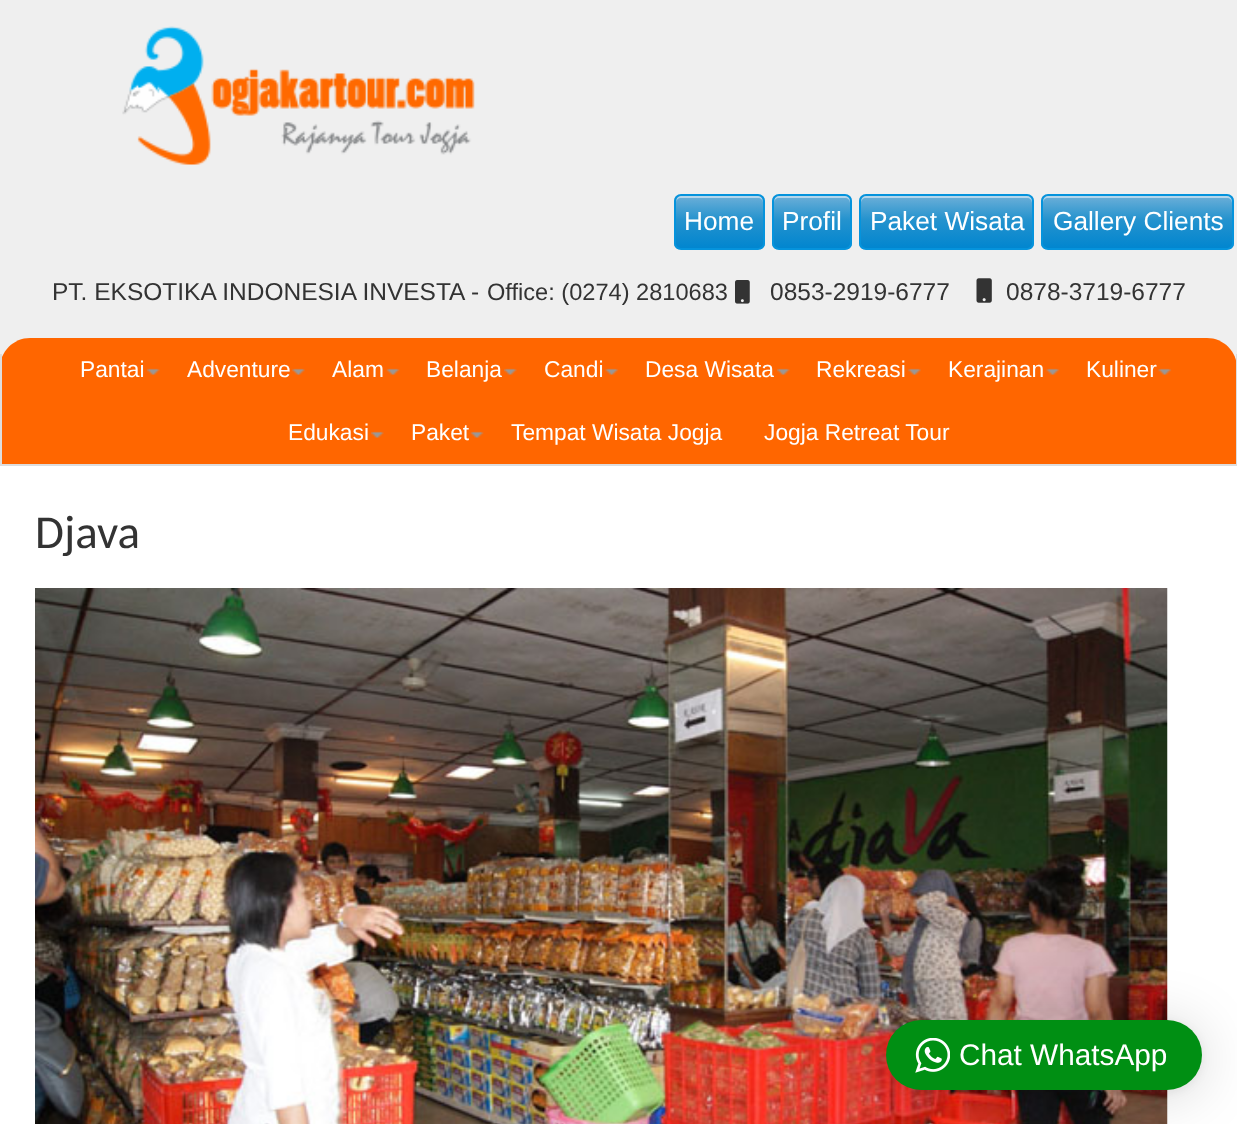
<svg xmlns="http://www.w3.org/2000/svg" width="1237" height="1124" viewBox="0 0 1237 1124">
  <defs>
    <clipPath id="clip1"><rect x="674" y="194" width="91" height="56" rx="7"/></clipPath>
    <linearGradient id="g1" gradientUnits="userSpaceOnUse" x1="719" y1="196" x2="719" y2="249"><stop offset="0" stop-color="#6cafd8"/><stop offset="0.44" stop-color="#2593ce"/><stop offset="1" stop-color="#0085cf"/></linearGradient>
    <clipPath id="clip2"><rect x="772" y="194" width="80" height="56" rx="7"/></clipPath>
    <linearGradient id="g2" gradientUnits="userSpaceOnUse" x1="812" y1="196" x2="812" y2="249"><stop offset="0" stop-color="#6cafd8"/><stop offset="0.44" stop-color="#2593ce"/><stop offset="1" stop-color="#0085cf"/></linearGradient>
    <clipPath id="clip3"><rect x="859" y="194" width="175" height="56" rx="7"/></clipPath>
    <linearGradient id="g3" gradientUnits="userSpaceOnUse" x1="947" y1="196" x2="947" y2="249"><stop offset="0" stop-color="#6cafd8"/><stop offset="0.44" stop-color="#2593ce"/><stop offset="1" stop-color="#0085cf"/></linearGradient>
    <clipPath id="clip4"><rect x="1041" y="194" width="193" height="56" rx="7"/></clipPath>
    <linearGradient id="g4" gradientUnits="userSpaceOnUse" x1="1138" y1="196" x2="1138" y2="249"><stop offset="0" stop-color="#6cafd8"/><stop offset="0.44" stop-color="#2593ce"/><stop offset="1" stop-color="#0085cf"/></linearGradient>
    <filter id="blur1" x="-50%" y="-200%" width="200%" height="500%"><feGaussianBlur stdDeviation="28"/></filter>
    <filter id="blur2" x="-50%" y="-200%" width="200%" height="500%"><feGaussianBlur stdDeviation="5"/></filter>
  </defs>
  <rect width="100%" height="100%" fill="#efefef"/>
  <image x="122" y="26" width="353" height="139" href="img1.png"/>
  <g clip-path="url(#clip1)">
    <rect x="674" y="196" width="91" height="53" fill="url(#g1)"/>
  </g>
  <path d="M681 198H758C761 198 763 200 763 203C763 193 754 196 745 196H694C685 196 676 193 676 203C676 200 678 198 681 198Z" fill="#ffffff" fill-opacity="0.5"/>
  <rect x="675" y="195" width="89" height="54" rx="6" fill="none" stroke="#0593dc" stroke-width="2"/>
  <text x="684" y="230" font-family="Liberation Sans" font-size="26.25" fill="#ffffff">Home</text>
  <g clip-path="url(#clip2)">
    <rect x="772" y="196" width="80" height="53" fill="url(#g2)"/>
  </g>
  <path d="M779 198H845C848 198 850 200 850 203V245L849 248C852 245 851 240 851 237V222C851 191 856 196 824 196H790C782 196 774 193 774 203C774 200 776 198 779 198Z" fill="#ffffff" fill-opacity="0.5"/>
  <rect x="773" y="195" width="78" height="54" rx="6" fill="none" stroke="#0593dc" stroke-width="2"/>
  <text x="782" y="230" font-family="Liberation Sans" font-size="26.25" fill="#ffffff">Profil</text>
  <g clip-path="url(#clip3)">
    <rect x="859" y="196" width="175" height="53" fill="url(#g3)"/>
  </g>
  <path d="M866 198H1027C1030 198 1032 200 1032 203V245L1031 248C1032 247 1033 245 1033 244V201C1033 198 1031 196 1028 196H866C863 196 861 198 861 201V203C861 200 863 198 866 198Z" fill="#ffffff" fill-opacity="0.5"/>
  <rect x="860" y="195" width="173" height="54" rx="6" fill="none" stroke="#0593dc" stroke-width="2"/>
  <text x="870" y="230" font-family="Liberation Sans" font-size="26.25" fill="#ffffff">Paket Wisata</text>
  <g clip-path="url(#clip4)">
    <rect x="1041" y="196" width="193" height="53" fill="url(#g4)"/>
  </g>
  <path d="M1048 198H1227C1230 198 1232 200 1232 203V201C1232 198 1230 196 1227 196H1048C1045 196 1043 198 1043 201V203C1043 200 1045 198 1048 198Z" fill="#ffffff" fill-opacity="0.5"/>
  <rect x="1042" y="195" width="191" height="54" rx="6" fill="none" stroke="#0593dc" stroke-width="2"/>
  <text x="1053" y="230" font-family="Liberation Sans" font-size="26.25" fill="#ffffff">Gallery Clients</text>
  <text x="52" y="300" font-family="Liberation Sans" font-size="24.5" fill="#333333">PT. EKSOTIKA INDONESIA INVESTA -</text>
  <text x="487" y="300" font-family="Liberation Sans" font-size="23.6" fill="#333333">Office: (0274) 2810683</text>
  <image x="735" y="280" width="15" height="24" href="img2.png"/>
  <text x="770" y="300" font-family="Liberation Sans" font-size="24.5" fill="#333333">0853-2919-6777</text>
  <image x="976" y="278" width="16" height="25" href="img3.png"/>
  <text x="1006" y="300" font-family="Liberation Sans" font-size="24.5" fill="#333333">0878-3719-6777</text>
  <path d="M30 338H1207C1223.5 338 1237 351.5 1237 368V466H0V368C0 351.5 13.5 338 30 338Z" fill="#ff6600"/>
  <rect x="1236" y="354" width="1" height="112" fill="#dddddd"/>
  <rect x="0" y="464" width="1237" height="2" fill="#dddddd"/>
  <rect x="0" y="354" width="2" height="112" fill="#dddddd"/>
  <image x="147" y="368" width="13" height="7" href="img4.png"/>
  <text x="80" y="377" font-family="Liberation Sans" font-size="22.75" fill="#ffffff">Pantai</text>
  <image x="292" y="368" width="13" height="7" href="img5.png"/>
  <text x="187" y="377" font-family="Liberation Sans" font-size="22.75" fill="#ffffff">Adventure</text>
  <image x="386" y="368" width="14" height="7" href="img6.png"/>
  <text x="332" y="377" font-family="Liberation Sans" font-size="22.75" fill="#ffffff">Alam</text>
  <image x="504" y="368" width="13" height="7" href="img4.png"/>
  <text x="426" y="377" font-family="Liberation Sans" font-size="22.75" fill="#ffffff">Belanja</text>
  <image x="605" y="368" width="14" height="7" href="img7.png"/>
  <text x="544" y="377" font-family="Liberation Sans" font-size="22.75" fill="#ffffff">Candi</text>
  <image x="777" y="368" width="13" height="7" href="img8.png"/>
  <text x="645" y="377" font-family="Liberation Sans" font-size="22.75" fill="#ffffff">Desa Wisata</text>
  <image x="908" y="368" width="13" height="7" href="img5.png"/>
  <text x="816" y="377" font-family="Liberation Sans" font-size="22.75" fill="#ffffff">Rekreasi</text>
  <image x="1046" y="368" width="14" height="7" href="img9.png"/>
  <text x="948" y="377" font-family="Liberation Sans" font-size="22.75" fill="#ffffff">Kerajinan</text>
  <image x="1158" y="368" width="14" height="7" href="img9.png"/>
  <text x="1086" y="377" font-family="Liberation Sans" font-size="22.75" fill="#ffffff">Kuliner</text>
  <image x="371" y="431" width="13" height="7" href="img10.png"/>
  <text x="288" y="440" font-family="Liberation Sans" font-size="22.75" fill="#ffffff">Edukasi</text>
  <image x="470" y="431" width="14" height="7" href="img6.png"/>
  <text x="411" y="440" font-family="Liberation Sans" font-size="22.75" fill="#ffffff">Paket</text>
  <text x="511" y="440" font-family="Liberation Sans" font-size="22.75" fill="#ffffff">Tempat Wisata Jogja</text>
  <text x="764" y="440" font-family="Liberation Sans" font-size="22.75" fill="#ffffff">Jogja Retreat Tour</text>
  <rect x="0" y="466" width="1237" height="658" fill="#ffffff"/>
  <text x="35" y="548" font-family="Carlito" font-size="47" fill="#333333">Djava</text>
  <image x="35" y="588" width="1133" height="536" href="img11.png"/>
  <rect x="886" y="1024" width="316" height="70" rx="35" fill="#000000" fill-opacity="0.16" filter="url(#blur1)"/>
  <rect x="886" y="1022" width="316" height="70" rx="35" fill="#000000" fill-opacity="0.06" filter="url(#blur2)"/>
  <rect x="886" y="1020" width="316" height="70" rx="35" fill="#008f13"/>
  <image x="915" y="1038" width="35" height="35" href="img12.png"/>
  <text x="959" y="1065" font-family="Liberation Sans" font-size="29.75" fill="#ffffff">Chat WhatsApp</text>
</svg>
